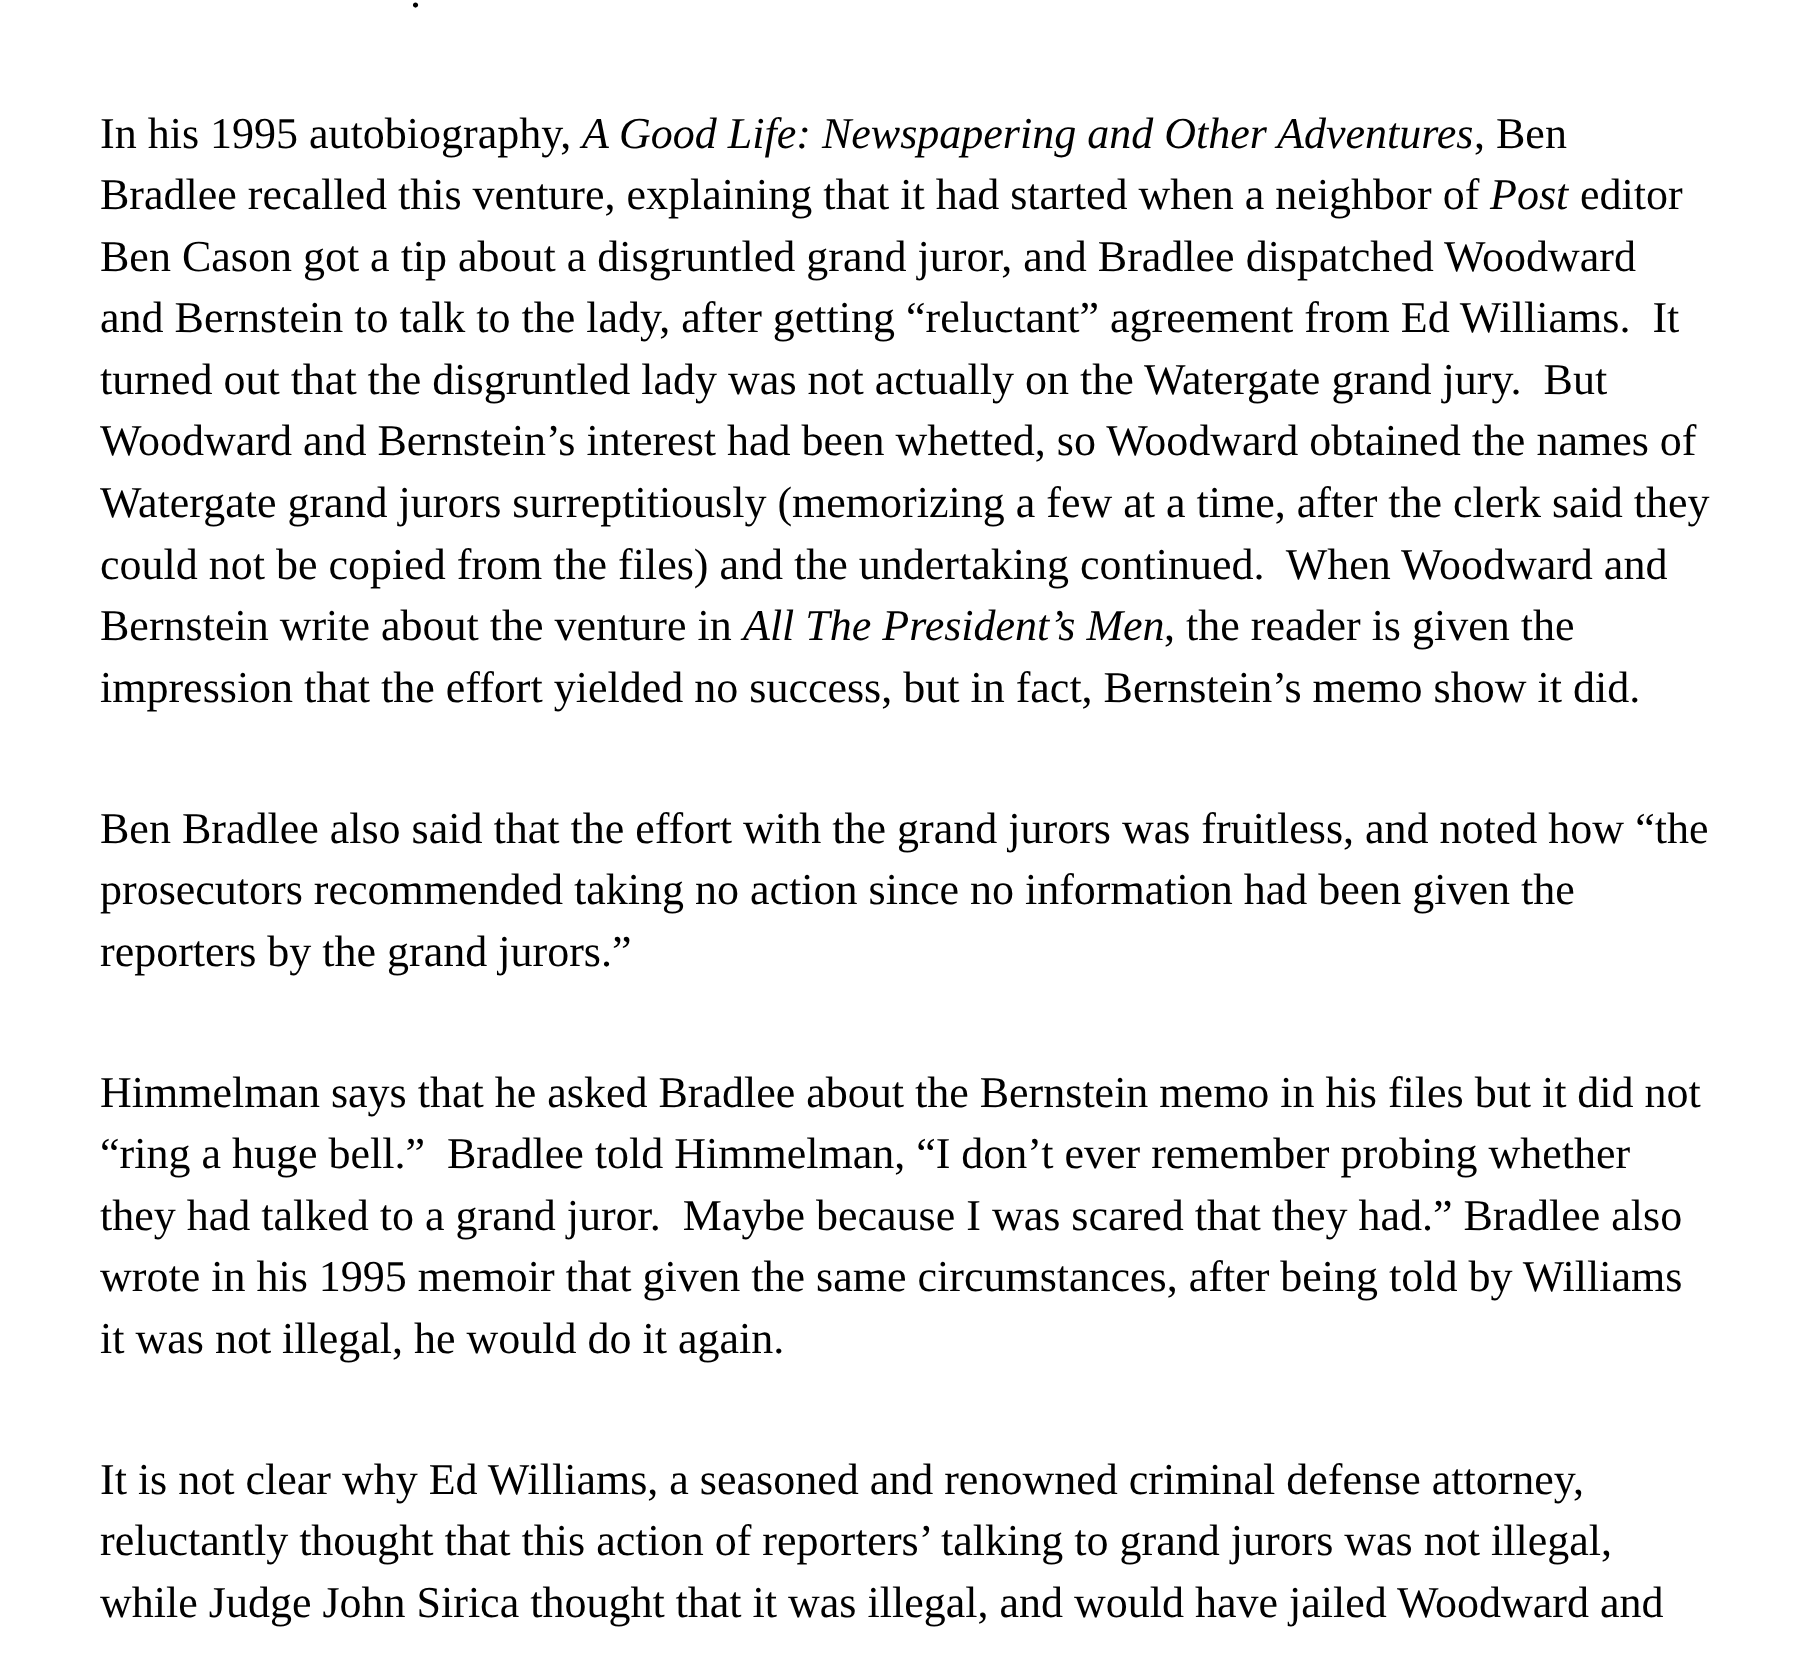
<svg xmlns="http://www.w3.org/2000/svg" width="1809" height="1657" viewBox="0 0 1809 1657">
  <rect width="100%" height="100%" fill="#ffffff"/>
  <text x="410" y="7" font-family="Liberation Serif" font-size="44" fill="#000000">.</text>
  <text x="100" y="148" font-family="Liberation Serif" font-size="44" fill="#000000">In his 1995 autobiography,</text>
  <text x="582" y="148" font-family="Liberation Serif" font-size="44" font-style="italic" fill="#000000">A Good Life: Newspapering and Other Adventures</text>
  <text x="1474" y="148" font-family="Liberation Serif" font-size="44" fill="#000000">, Ben</text>
  <text x="100" y="209" font-family="Liberation Serif" font-size="44" fill="#000000">Bradlee recalled this venture, explaining that it had started when a neighbor of</text>
  <text x="1490" y="209" font-family="Liberation Serif" font-size="44" font-style="italic" fill="#000000">Post</text>
  <text x="1580" y="209" font-family="Liberation Serif" font-size="44" fill="#000000">editor</text>
  <text x="100" y="271" font-family="Liberation Serif" font-size="44" fill="#000000">Ben Cason got a tip about a disgruntled grand juror, and Bradlee dispatched Woodward</text>
  <text x="100" y="332" font-family="Liberation Serif" font-size="44" fill="#000000" xml:space="preserve">and Bernstein to talk to the lady, after getting “reluctant” agreement from Ed Williams.  It</text>
  <text x="100" y="394" font-family="Liberation Serif" font-size="44" fill="#000000" xml:space="preserve">turned out that the disgruntled lady was not actually on the Watergate grand jury.  But</text>
  <text x="100" y="455" font-family="Liberation Serif" font-size="44" fill="#000000">Woodward and Bernstein’s interest had been whetted, so Woodward obtained the names of</text>
  <text x="100" y="517" font-family="Liberation Serif" font-size="44" fill="#000000">Watergate grand jurors surreptitiously (memorizing a few at a time, after the clerk said they</text>
  <text x="100" y="579" font-family="Liberation Serif" font-size="44" fill="#000000" xml:space="preserve">could not be copied from the files) and the undertaking continued.  When Woodward and</text>
  <text x="100" y="640" font-family="Liberation Serif" font-size="44" fill="#000000">Bernstein write about the venture in</text>
  <text x="743" y="640" font-family="Liberation Serif" font-size="44" font-style="italic" fill="#000000">All The President’s Men</text>
  <text x="1164" y="640" font-family="Liberation Serif" font-size="44" fill="#000000">, the reader is given the</text>
  <text x="100" y="702" font-family="Liberation Serif" font-size="44" fill="#000000">impression that the effort yielded no success, but in fact, Bernstein’s memo show it did.</text>
  <text x="100" y="843" font-family="Liberation Serif" font-size="44" fill="#000000">Ben Bradlee also said that the effort with the grand jurors was fruitless, and noted how “the</text>
  <text x="100" y="904" font-family="Liberation Serif" font-size="44" fill="#000000">prosecutors recommended taking no action since no information had been given the</text>
  <text x="100" y="966" font-family="Liberation Serif" font-size="44" fill="#000000">reporters by the grand jurors.”</text>
  <text x="100" y="1107" font-family="Liberation Serif" font-size="44" fill="#000000">Himmelman says that he asked Bradlee about the Bernstein memo in his files but it did not</text>
  <text x="100" y="1168" font-family="Liberation Serif" font-size="44" fill="#000000" xml:space="preserve">“ring a huge bell.”  Bradlee told Himmelman, “I don’t ever remember probing whether</text>
  <text x="100" y="1230" font-family="Liberation Serif" font-size="44" fill="#000000" xml:space="preserve">they had talked to a grand juror.  Maybe because I was scared that they had.” Bradlee also</text>
  <text x="100" y="1291" font-family="Liberation Serif" font-size="44" fill="#000000">wrote in his 1995 memoir that given the same circumstances, after being told by Williams</text>
  <text x="100" y="1353" font-family="Liberation Serif" font-size="44" fill="#000000">it was not illegal, he would do it again.</text>
  <text x="100" y="1494" font-family="Liberation Serif" font-size="44" fill="#000000">It is not clear why Ed Williams, a seasoned and renowned criminal defense attorney,</text>
  <text x="100" y="1555" font-family="Liberation Serif" font-size="44" fill="#000000">reluctantly thought that this action of reporters’ talking to grand jurors was not illegal,</text>
  <text x="100" y="1617" font-family="Liberation Serif" font-size="44" fill="#000000">while Judge John Sirica thought that it was illegal, and would have jailed Woodward and</text>
</svg>
